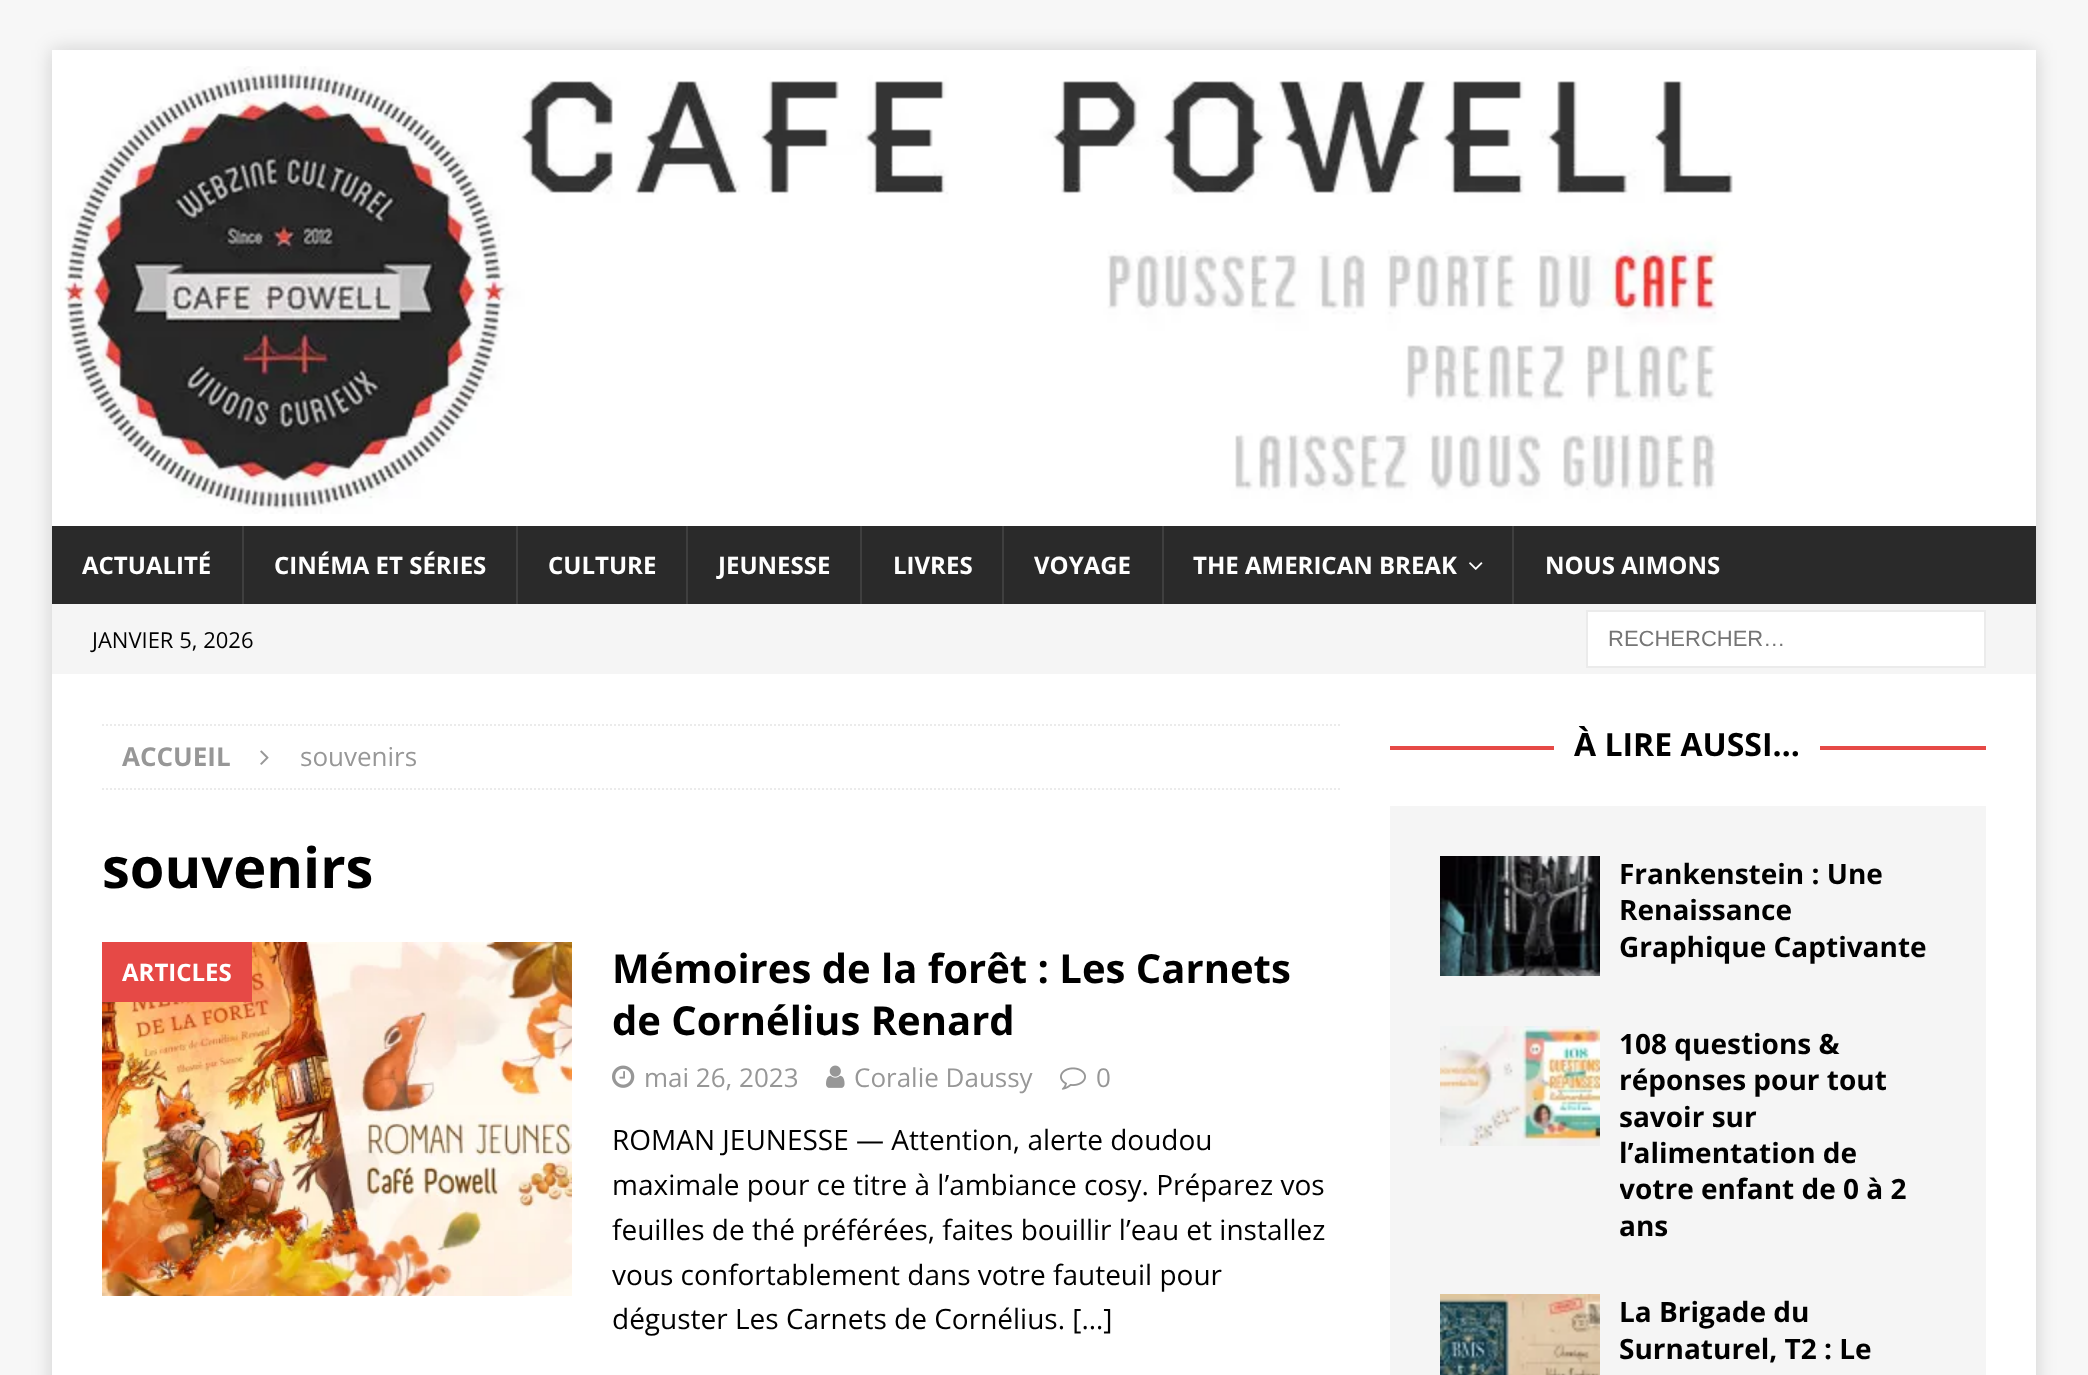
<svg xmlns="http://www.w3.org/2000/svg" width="2088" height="1375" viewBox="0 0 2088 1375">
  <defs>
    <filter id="blur1" x="-50%" y="-200%" width="200%" height="500%"><feGaussianBlur stdDeviation="10"/></filter>
    <clipPath id="clip1"><rect x="1620" y="1026" width="316" height="218"/></clipPath>
  </defs>
  <rect width="100%" height="100%" fill="#f7f7f7"/>
  <rect x="52" y="50" width="1984" height="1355" fill="#323232" fill-opacity="0.17" filter="url(#blur1)"/>
  <rect x="52" y="50" width="1984" height="476" fill="#ffffff"/>
  <image x="60" y="66" width="1673" height="448" href="img1.png"/>
  <rect x="52" y="526" width="1984" height="78" fill="#2a2a2a"/>
  <text x="82" y="574" font-family="Open Sans" font-size="24" font-weight="bold" fill="#ffffff">ACTUALITÉ</text>
  <rect x="242" y="526" width="2" height="78" fill="#3f3f3f"/>
  <text x="274" y="574" font-family="Open Sans" font-size="24" font-weight="bold" fill="#ffffff">CINÉMA ET SÉRIES</text>
  <rect x="516" y="526" width="2" height="78" fill="#3f3f3f"/>
  <text x="548" y="574" font-family="Open Sans" font-size="24" font-weight="bold" fill="#ffffff">CULTURE</text>
  <rect x="686" y="526" width="2" height="78" fill="#3f3f3f"/>
  <text x="718" y="574" font-family="Open Sans" font-size="24" font-weight="bold" fill="#ffffff">JEUNESSE</text>
  <rect x="860" y="526" width="2" height="78" fill="#3f3f3f"/>
  <text x="893" y="574" font-family="Open Sans" font-size="24" font-weight="bold" fill="#ffffff">LIVRES</text>
  <rect x="1002" y="526" width="2" height="78" fill="#3f3f3f"/>
  <text x="1034" y="574" font-family="Open Sans" font-size="24" font-weight="bold" fill="#ffffff">VOYAGE</text>
  <rect x="1162" y="526" width="2" height="78" fill="#3f3f3f"/>
  <text x="1193" y="574" font-family="Open Sans" font-size="24" font-weight="bold" fill="#ffffff">THE AMERICAN BREAK</text>
  <image x="1469" y="562" width="14" height="8" href="img2.png"/>
  <rect x="1512" y="526" width="2" height="78" fill="#3f3f3f"/>
  <text x="1545" y="574" font-family="Open Sans" font-size="24" font-weight="bold" fill="#ffffff">NOUS AIMONS</text>
  <rect x="52" y="604" width="1984" height="70" fill="#f5f5f5"/>
  <text x="92" y="648" font-family="Open Sans" font-size="22" fill="#000000">JANVIER 5, 2026</text>
  <rect x="1587" y="611" width="398" height="56" fill="#ffffff" stroke="#ebebeb" stroke-width="2"/>
  <text x="1608" y="646" font-family="Liberation Sans" font-size="22" fill="#757575">RECHERCHER…</text>
  <rect x="52" y="674" width="1984" height="701" fill="#ffffff"/>
  <path d="M102 725H1342" fill="none" stroke="#ebebeb" stroke-width="2" stroke-dasharray="2 2"/>
  <path d="M102 789H1342" fill="none" stroke="#ebebeb" stroke-width="2" stroke-dasharray="2 2"/>
  <text x="122" y="766" font-family="Open Sans" font-size="26" font-weight="bold" fill="#979797">ACCUEIL</text>
  <image x="260" y="750" width="9" height="15" href="img3.png"/>
  <text x="300" y="766" font-family="Open Sans" font-size="26" fill="#979797">souvenirs</text>
  <text x="102" y="888" font-family="Open Sans" font-size="56" font-weight="bold" fill="#000000">souvenirs</text>
  <image x="102" y="942" width="470" height="354" href="img4.png"/>
  <rect x="102" y="942" width="150" height="60" fill="#e64946"/>
  <text x="122" y="981" font-family="Open Sans" font-size="24" font-weight="bold" fill="#ffffff">ARTICLES</text>
  <text x="612" y="983" font-family="Open Sans" font-size="40" font-weight="bold" fill="#000000">Mémoires de la forêt : Les Carnets</text>
  <text x="612" y="1035" font-family="Open Sans" font-size="40" font-weight="bold" fill="#000000">de Cornélius Renard</text>
  <image x="612" y="1065" width="23" height="23" href="img5.png"/>
  <text x="644" y="1087" font-family="Open Sans" font-size="26" fill="#979797">mai 26, 2023</text>
  <image x="826" y="1065" width="19" height="23" href="img6.png"/>
  <text x="854" y="1087" font-family="Open Sans" font-size="26" fill="#979797">Coralie Daussy</text>
  <image x="1060" y="1067" width="26" height="23" href="img7.png"/>
  <text x="1096" y="1087" font-family="Open Sans" font-size="26" fill="#979797">0</text>
  <text x="612" y="1150" font-family="Open Sans" font-size="28" fill="#000000">ROMAN JEUNESSE — Attention, alerte doudou</text>
  <text x="612" y="1195" font-family="Open Sans" font-size="28" fill="#000000">maximale pour ce titre à l’ambiance cosy. Préparez vos</text>
  <text x="612" y="1240" font-family="Open Sans" font-size="28" fill="#000000">feuilles de thé préférées, faites bouillir l’eau et installez</text>
  <text x="612" y="1285" font-family="Open Sans" font-size="28" fill="#000000">vous confortablement dans votre fauteuil pour</text>
  <text x="612" y="1329" font-family="Open Sans" font-size="28" fill="#000000">déguster Les Carnets de Cornélius. […]</text>
  <rect x="1390" y="746" width="596" height="4" fill="#e64946"/>
  <rect x="1554" y="746" width="266" height="4" fill="#ffffff"/>
  <text x="1574" y="756" font-family="Open Sans" font-size="32" font-weight="bold" fill="#000000">À LIRE AUSSI…</text>
  <rect x="1390" y="806" width="596" height="569" fill="#f5f5f5"/>
  <image x="1440" y="856" width="160" height="120" href="img8.png"/>
  <text x="1619" y="884" font-family="Open Sans" font-size="28" font-weight="bold" fill="#000000">Frankenstein : Une</text>
  <text x="1619" y="920" font-family="Open Sans" font-size="28" font-weight="bold" fill="#000000">Renaissance</text>
  <text x="1619" y="957" font-family="Open Sans" font-size="28" font-weight="bold" fill="#000000">Graphique Captivante</text>
  <image x="1440" y="1026" width="160" height="120" href="img9.png"/>
  <text x="1619" y="1054" font-family="Open Sans" font-size="28" font-weight="bold" fill="#000000">108 questions &amp;</text>
  <text x="1619" y="1090" font-family="Open Sans" font-size="28" font-weight="bold" fill="#000000">réponses pour tout</text>
  <text x="1619" y="1127" font-family="Open Sans" font-size="28" font-weight="bold" fill="#000000">savoir sur</text>
  <text x="1619" y="1163" font-family="Open Sans" font-size="28" font-weight="bold" fill="#000000">l’alimentation de</text>
  <g clip-path="url(#clip1)">
    <text x="1619" y="1199" font-family="Open Sans" font-size="28" font-weight="bold" fill="#000000">votre enfant de 0 à 2</text>
  </g>
  <text x="1619" y="1236" font-family="Open Sans" font-size="28" font-weight="bold" fill="#000000">ans</text>
  <image x="1440" y="1294" width="160" height="81" href="img10.png"/>
  <text x="1619" y="1322" font-family="Open Sans" font-size="28" font-weight="bold" fill="#000000">La Brigade du</text>
  <text x="1619" y="1359" font-family="Open Sans" font-size="28" font-weight="bold" fill="#000000">Surnaturel, T2 : Le</text>
</svg>
